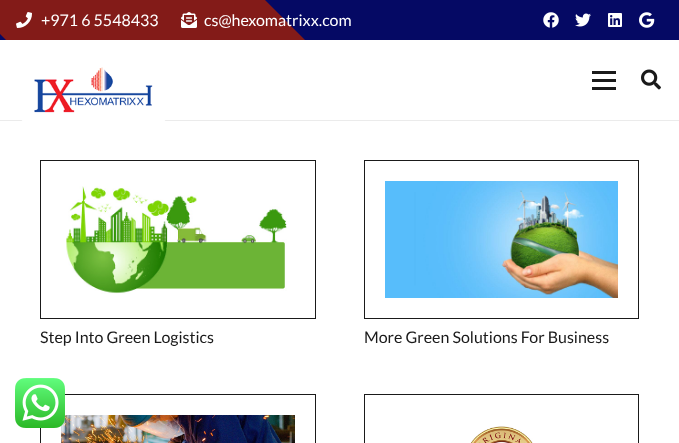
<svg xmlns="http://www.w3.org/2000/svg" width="679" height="443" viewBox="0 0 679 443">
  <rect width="100%" height="100%" fill="#ffffff"/>
  <rect x="0" y="0" width="679" height="40" fill="#050964"/>
  <path d="M-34 0H265L305 40H6Z" fill="#831b18"/>
  <image x="16" y="12" width="16" height="16" href="img1.png"/>
  <text x="41" y="26" font-family="Lato" font-size="16" fill="#ffffff">+971 6 5548433</text>
  <image x="181" y="12" width="16" height="16" href="img2.png"/>
  <text x="204" y="26" font-family="Lato" font-size="16" fill="#ffffff">cs@hexomatrixx.com</text>
  <image x="543" y="12" width="16" height="16" href="img3.png"/>
  <image x="575" y="13" width="16" height="14" href="img4.png"/>
  <image x="608" y="13" width="14" height="14" href="img5.png"/>
  <image x="639" y="12" width="16" height="16" href="img6.png"/>
  <rect x="0" y="120" width="679" height="1" fill="#ebebeb"/>
  <rect x="16" y="57" width="155" height="70" rx="21" fill="#ffffff"/>
  <image x="34" y="67" width="119" height="46" href="img7.png"/>
  <rect x="592" y="79" width="24" height="3" fill="#1a1a1a"/>
  <rect x="592" y="71" width="24" height="3" fill="#1a1a1a"/>
  <rect x="592" y="87" width="24" height="3" fill="#1a1a1a"/>
  <image x="641" y="69" width="20" height="21" href="img8.png"/>
  <rect x="40.5" y="160.5" width="275" height="158" fill="none" stroke="#1a1a1a"/>
  <image x="66" y="186" width="221" height="108" href="img9.png"/>
  <text x="40" y="343" font-family="Lato" font-size="16" fill="#1a1a1a">Step Into Green Logistics</text>
  <rect x="364.5" y="160.5" width="274" height="158" fill="none" stroke="#1a1a1a"/>
  <image x="385" y="181" width="233" height="117" href="img10.png"/>
  <text x="364" y="343" font-family="Lato" font-size="16" fill="#1a1a1a">More Green Solutions For Business</text>
  <rect x="40.5" y="394.5" width="275" height="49" fill="none" stroke="#1a1a1a"/>
  <image x="61" y="415" width="234" height="28" href="img11.png"/>
  <rect x="364.5" y="394.5" width="274" height="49" fill="none" stroke="#1a1a1a"/>
  <image x="470" y="426" width="63" height="17" href="img12.png"/>
  <image x="15" y="378" width="50" height="50" href="img13.png"/>
</svg>
